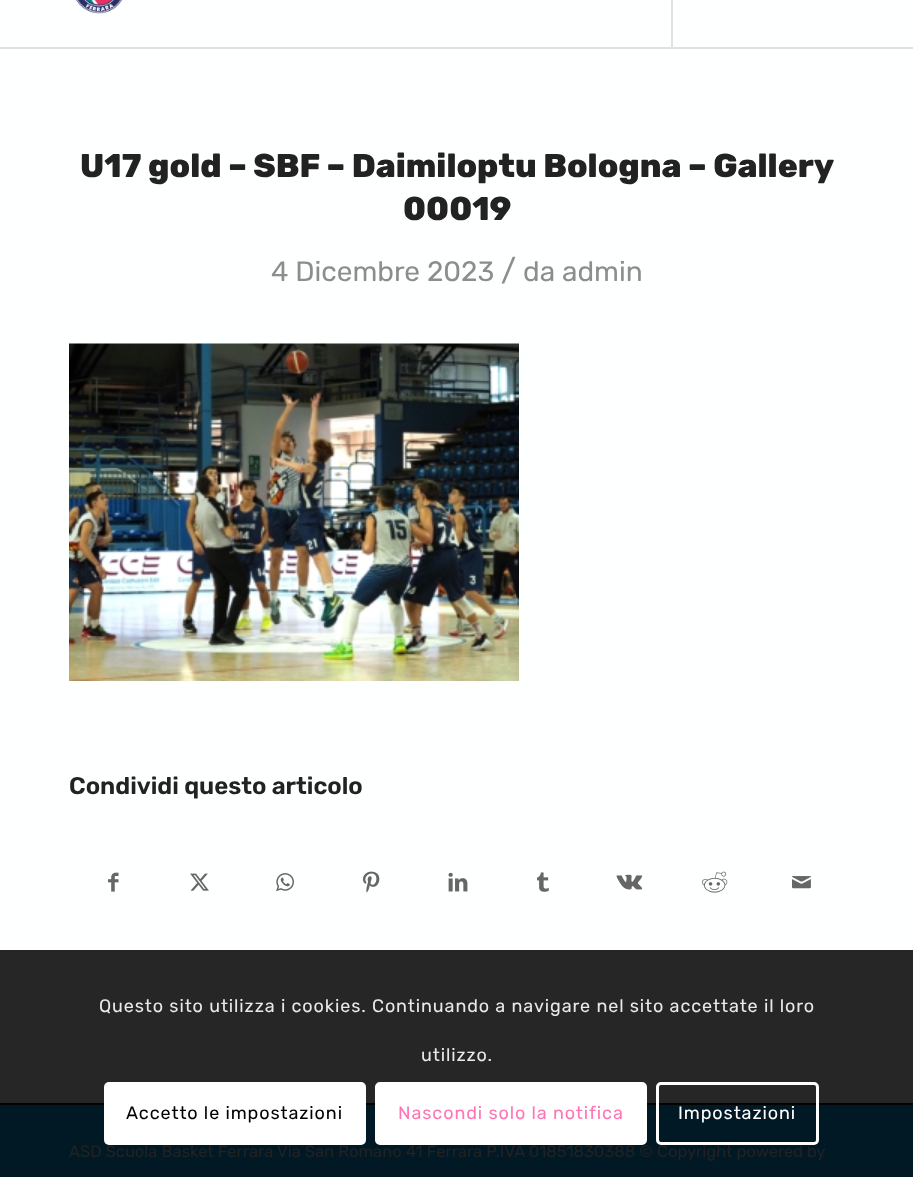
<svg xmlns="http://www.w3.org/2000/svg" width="913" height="1177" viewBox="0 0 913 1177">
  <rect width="100%" height="100%" fill="#feffff"/>
  <rect x="0" y="950" width="913" height="153" fill="#262626"/>
  <rect x="0" y="47" width="913" height="2" fill="#e1e1e1"/>
  <image x="76" y="0" width="46" height="14" href="img1.png"/>
  <rect x="671" y="0" width="2" height="47" fill="#e1e1e1"/>
  <text x="80" y="177" font-family="Rubik" font-size="33" font-weight="800" fill="#222222">U17 gold – SBF – Daimiloptu Bologna – Gallery</text>
  <text x="403" y="220" font-family="Rubik" font-size="33" font-weight="800" fill="#222222">00019</text>
  <text x="271" y="281" font-family="Rubik" font-size="28" fill="#8d8d8d">4 Dicembre 2023</text>
  <text x="501" y="281" font-family="Rubik" font-size="31" fill="#8d8d8d">/</text>
  <text x="523" y="281" font-family="Rubik" font-size="28" fill="#8d8d8d">da admin</text>
  <image x="69" y="343" width="450" height="338" href="img2.png"/>
  <text x="69" y="794" font-family="Rubik" font-size="24" font-weight="600" fill="#222222">Condividi questo articolo</text>
  <image x="108" y="872" width="11" height="20" href="img3.png"/>
  <image x="190" y="873" width="19" height="18" href="img4.png"/>
  <image x="276" y="873" width="18" height="19" href="img5.png"/>
  <image x="363" y="871" width="17" height="22" href="img6.png"/>
  <image x="448" y="872" width="20" height="20" href="img7.png"/>
  <image x="537" y="872" width="12" height="20" href="img8.png"/>
  <image x="616" y="874" width="27" height="16" href="img9.png"/>
  <image x="702" y="871" width="26" height="22" href="img10.png"/>
  <image x="792" y="876" width="19" height="13" href="img11.png"/>
  <rect x="0" y="1105" width="913" height="72" fill="#001925"/>
  <rect x="0" y="1103" width="913" height="2" fill="#030303"/>
  <text x="69" y="1157" font-family="Rubik" font-size="16.5" fill="#222222">ASD Scuola Basket Ferrara Via San Romano 41 Ferrara P.IVA 01851830388 © Copyright powered by</text>
  <text x="99" y="1012" font-family="Rubik" font-size="18" letter-spacing="0.9" fill="#e9e9e9">Questo sito utilizza i cookies. Continuando a navigare nel sito accettate il loro</text>
  <text x="421" y="1061" font-family="Rubik" font-size="18" letter-spacing="0.9" fill="#e9e9e9">utilizzo.</text>
  <rect x="104" y="1082" width="262" height="63" rx="5" fill="#ffffff"/>
  <text x="126" y="1119" font-family="Rubik" font-size="18" letter-spacing="0.9" fill="#000000">Accetto le impostazioni</text>
  <rect x="376.5" y="1083.5" width="269" height="60" rx="3.5" fill="#ffffff" stroke="#ffffff" stroke-width="3"/>
  <text x="398" y="1119" font-family="Rubik" font-size="18" letter-spacing="0.9" fill="#ff75b5">Nascondi solo la notifica</text>
  <rect x="657.5" y="1083.5" width="160" height="60" rx="3.5" fill="none" stroke="#ffffff" stroke-width="3"/>
  <text x="678" y="1119" font-family="Rubik" font-size="18" letter-spacing="0.9" fill="#ffffff">Impostazioni</text>
</svg>
